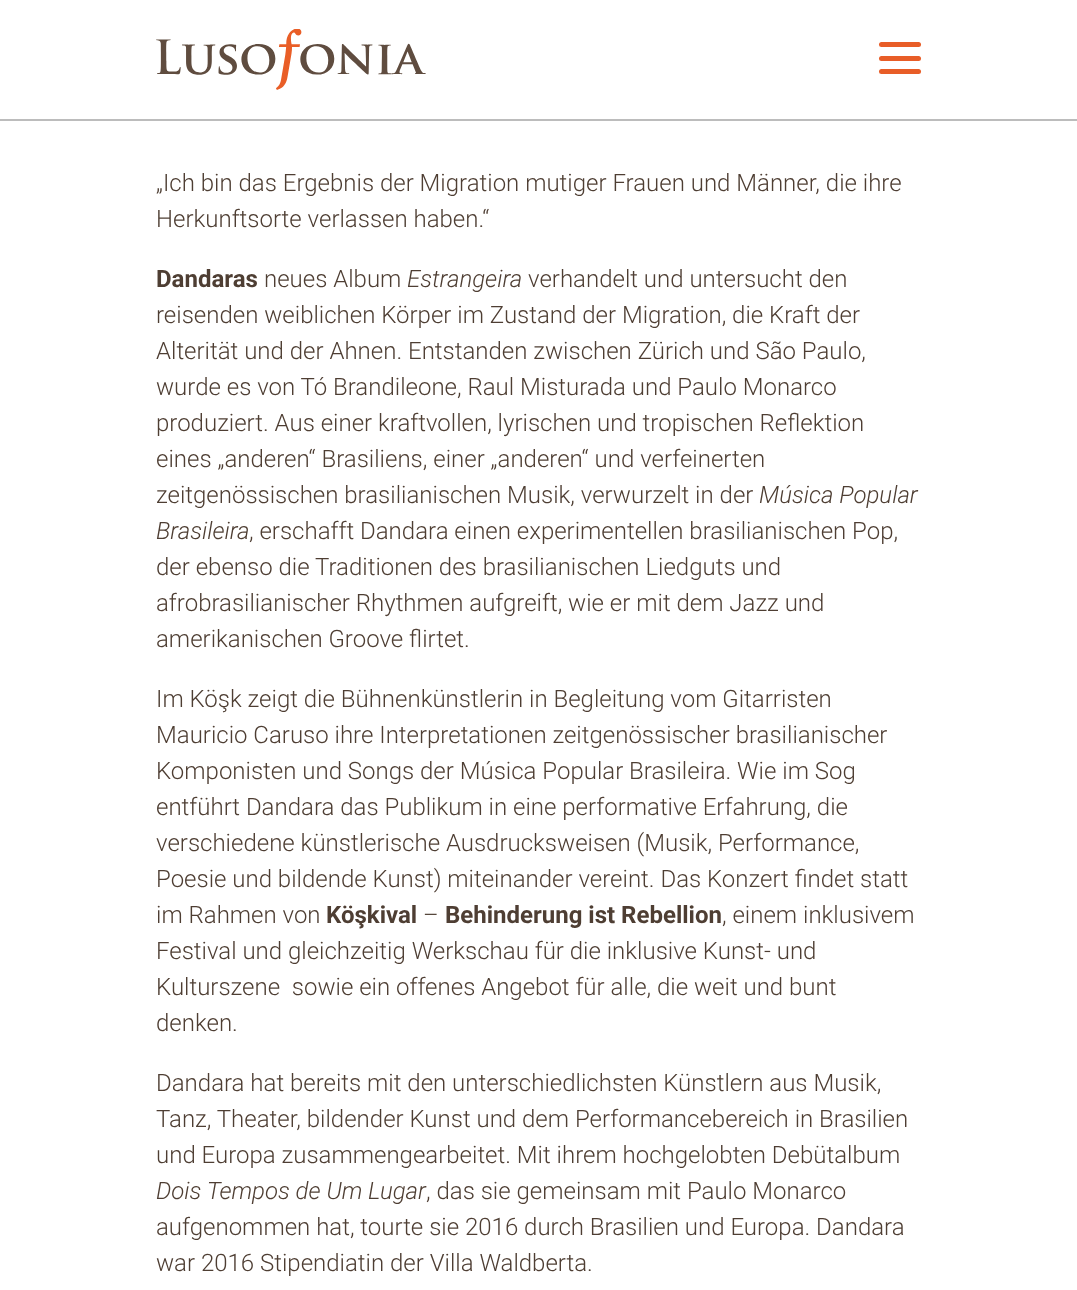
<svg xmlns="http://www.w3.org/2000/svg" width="1077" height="1290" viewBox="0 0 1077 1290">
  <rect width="100%" height="100%" fill="#ffffff"/>
  <rect x="0" y="119" width="1077" height="2" fill="#bcbcbc"/>
  <image x="156" y="29" width="270" height="61" href="img1.png"/>
  <rect x="879" y="42" width="42" height="5" rx="2.5" fill="#e85d27"/>
  <rect x="879" y="56" width="42" height="5" rx="2.5" fill="#e85d27"/>
  <rect x="879" y="69" width="42" height="5" rx="2.5" fill="#e85d27"/>
  <text x="156" y="191" font-family="Roboto" font-size="24" font-weight="300" fill="#4e3e33">„Ich bin das Ergebnis der Migration mutiger Frauen und Männer, die ihre</text>
  <text x="156" y="227" font-family="Roboto" font-size="24" font-weight="300" fill="#4e3e33">Herkunftsorte verlassen haben.“</text>
  <text x="156" y="287" font-family="Roboto" font-size="24" font-weight="bold" fill="#4e3e33">Dandaras</text>
  <text x="264" y="287" font-family="Roboto" font-size="24" font-weight="300" fill="#4e3e33">neues Album</text>
  <text x="407" y="287" font-family="Roboto" font-size="24" font-weight="300" font-style="italic" fill="#4e3e33">Estrangeira</text>
  <text x="528" y="287" font-family="Roboto" font-size="24" font-weight="300" fill="#4e3e33">verhandelt und untersucht den</text>
  <text x="156" y="323" font-family="Roboto" font-size="24" font-weight="300" fill="#4e3e33">reisenden weiblichen Körper im Zustand der Migration, die Kraft der</text>
  <text x="156" y="359" font-family="Roboto" font-size="24" font-weight="300" fill="#4e3e33">Alterität und der Ahnen. Entstanden zwischen Zürich und São Paulo,</text>
  <text x="156" y="395" font-family="Roboto" font-size="24" font-weight="300" fill="#4e3e33">wurde es von Tó Brandileone, Raul Misturada und Paulo Monarco</text>
  <text x="156" y="431" font-family="Roboto" font-size="24" font-weight="300" fill="#4e3e33">produziert. Aus einer kraftvollen, lyrischen und tropischen Reflektion</text>
  <text x="156" y="467" font-family="Roboto" font-size="24" font-weight="300" fill="#4e3e33">eines „anderen“ Brasiliens, einer „anderen“ und verfeinerten</text>
  <text x="156" y="503" font-family="Roboto" font-size="24" font-weight="300" fill="#4e3e33">zeitgenössischen brasilianischen Musik, verwurzelt in der</text>
  <text x="759" y="503" font-family="Roboto" font-size="24" font-weight="300" font-style="italic" fill="#4e3e33">Música Popular</text>
  <text x="156" y="539" font-family="Roboto" font-size="24" font-weight="300" font-style="italic" fill="#4e3e33">Brasileira</text>
  <text x="249" y="539" font-family="Roboto" font-size="24" font-weight="300" fill="#4e3e33">, erschafft Dandara einen experimentellen brasilianischen Pop,</text>
  <text x="156" y="575" font-family="Roboto" font-size="24" font-weight="300" fill="#4e3e33">der ebenso die Traditionen des brasilianischen Liedguts und</text>
  <text x="156" y="611" font-family="Roboto" font-size="24" font-weight="300" fill="#4e3e33">afrobrasilianischer Rhythmen aufgreift, wie er mit dem Jazz und</text>
  <text x="156" y="647" font-family="Roboto" font-size="24" font-weight="300" fill="#4e3e33">amerikanischen Groove flirtet.</text>
  <text x="156" y="707" font-family="Roboto" font-size="24" font-weight="300" fill="#4e3e33">Im Köşk zeigt die Bühnenkünstlerin in Begleitung vom Gitarristen</text>
  <text x="156" y="743" font-family="Roboto" font-size="24" font-weight="300" fill="#4e3e33">Mauricio Caruso ihre Interpretationen zeitgenössischer brasilianischer</text>
  <text x="156" y="779" font-family="Roboto" font-size="24" font-weight="300" fill="#4e3e33">Komponisten und Songs der Música Popular Brasileira. Wie im Sog</text>
  <text x="156" y="815" font-family="Roboto" font-size="24" font-weight="300" fill="#4e3e33">entführt Dandara das Publikum in eine performative Erfahrung, die</text>
  <text x="156" y="851" font-family="Roboto" font-size="24" font-weight="300" fill="#4e3e33">verschiedene künstlerische Ausdrucksweisen (Musik, Performance,</text>
  <text x="156" y="887" font-family="Roboto" font-size="24" font-weight="300" fill="#4e3e33">Poesie und bildende Kunst) miteinander vereint. Das Konzert findet statt</text>
  <text x="156" y="923" font-family="Roboto" font-size="24" font-weight="300" fill="#4e3e33">im Rahmen von</text>
  <text x="326" y="923" font-family="Roboto" font-size="24" font-weight="bold" fill="#4e3e33">Köşkival</text>
  <text x="423" y="923" font-family="Roboto" font-size="24" font-weight="300" fill="#4e3e33">–</text>
  <text x="445" y="923" font-family="Roboto" font-size="24" font-weight="bold" fill="#4e3e33">Behinderung ist Rebellion</text>
  <text x="722" y="923" font-family="Roboto" font-size="24" font-weight="300" fill="#4e3e33">, einem inklusivem</text>
  <text x="156" y="959" font-family="Roboto" font-size="24" font-weight="300" fill="#4e3e33">Festival und gleichzeitig Werkschau für die inklusive Kunst- und</text>
  <text x="156" y="995" font-family="Roboto" font-size="24" font-weight="300" fill="#4e3e33" xml:space="preserve">Kulturszene  sowie ein offenes Angebot für alle, die weit und bunt</text>
  <text x="156" y="1031" font-family="Roboto" font-size="24" font-weight="300" fill="#4e3e33">denken.</text>
  <text x="156" y="1091" font-family="Roboto" font-size="24" font-weight="300" fill="#4e3e33">Dandara hat bereits mit den unterschiedlichsten Künstlern aus Musik,</text>
  <text x="156" y="1127" font-family="Roboto" font-size="24" font-weight="300" fill="#4e3e33">Tanz, Theater, bildender Kunst und dem Performancebereich in Brasilien</text>
  <text x="156" y="1163" font-family="Roboto" font-size="24" font-weight="300" fill="#4e3e33">und Europa zusammengearbeitet. Mit ihrem hochgelobten Debütalbum</text>
  <text x="156" y="1199" font-family="Roboto" font-size="24" font-weight="300" font-style="italic" fill="#4e3e33">Dois Tempos de Um Lugar</text>
  <text x="426" y="1199" font-family="Roboto" font-size="24" font-weight="300" fill="#4e3e33">, das sie gemeinsam mit Paulo Monarco</text>
  <text x="156" y="1235" font-family="Roboto" font-size="24" font-weight="300" fill="#4e3e33">aufgenommen hat, tourte sie 2016 durch Brasilien und Europa. Dandara</text>
  <text x="156" y="1271" font-family="Roboto" font-size="24" font-weight="300" fill="#4e3e33">war 2016 Stipendiatin der Villa Waldberta.</text>
</svg>
